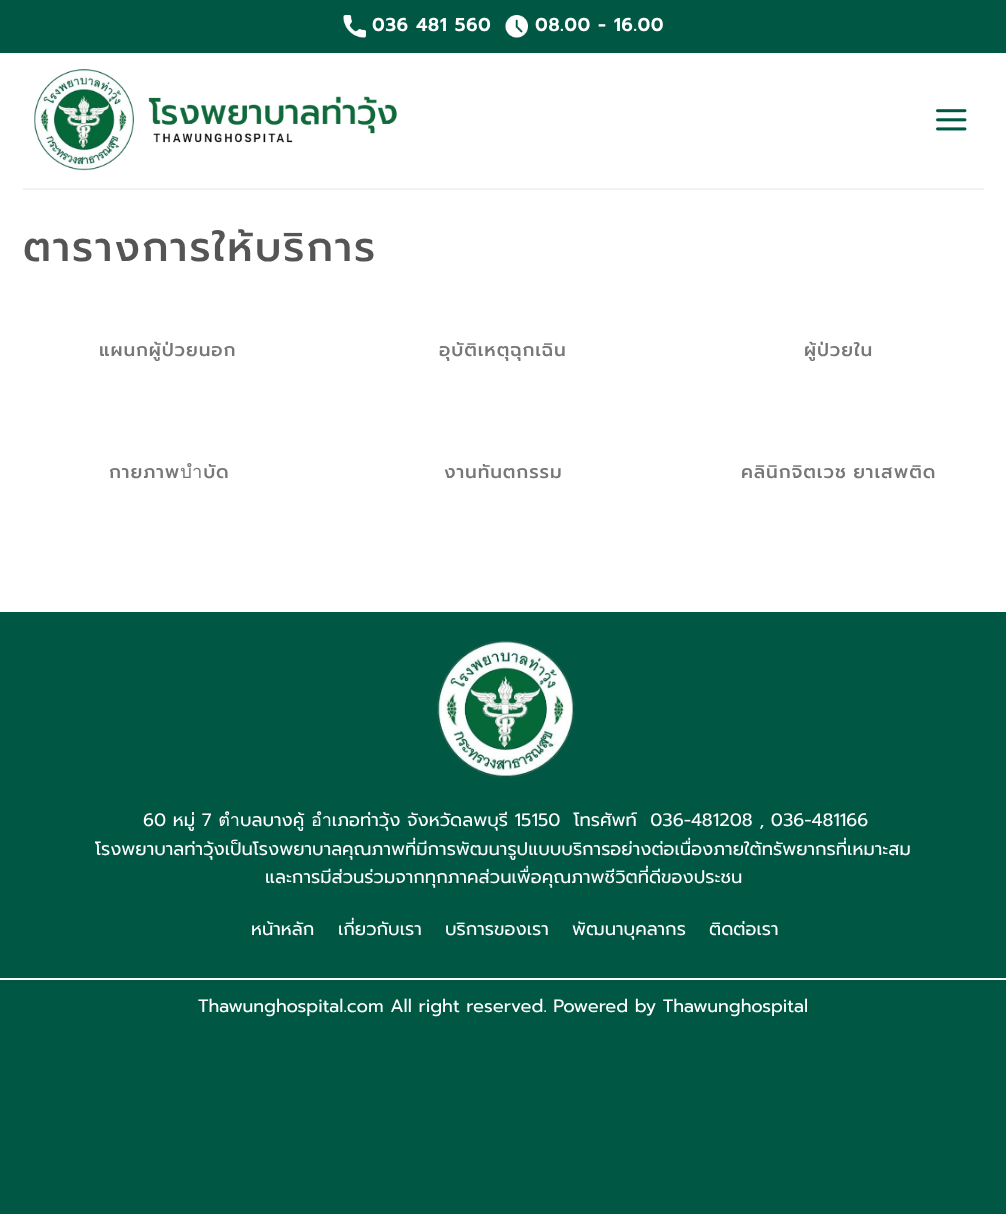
<svg xmlns="http://www.w3.org/2000/svg" width="1006" height="1214" viewBox="0 0 1006 1214">
  <rect width="100%" height="100%" fill="#005744"/>
  <rect x="0" y="53" width="1006" height="559" fill="#ffffff"/>
  <image x="343" y="15" width="23" height="23" href="img1.png"/>
  <text x="372" y="31" font-family="Prompt" font-size="18" font-weight="bold" letter-spacing="0.9" fill="#ffffff">036 481 560</text>
  <image x="505" y="15" width="23" height="23" href="img2.png"/>
  <text x="535" y="31" font-family="Prompt" font-size="18" font-weight="bold" letter-spacing="0.9" fill="#ffffff">08.00 - 16.00</text>
  <image x="34" y="69" width="363" height="102" href="img3.png"/>
  <image x="936" y="109" width="31" height="22" href="img4.png"/>
  <rect x="23" y="188" width="961" height="2" fill="#f1f1f1"/>
  <text x="23" y="261" font-family="Prompt" font-size="40.75" font-weight="500" letter-spacing="2" fill="#555555">ตารางการให้บริการ</text>
  <text x="99" y="356" font-family="Prompt" font-size="18.4" font-weight="500" letter-spacing="0.9" fill="#777777">แผนกผู้ป่วยนอก</text>
  <text x="439" y="356" font-family="Prompt" font-size="18.4" font-weight="500" letter-spacing="0.9" fill="#777777">อุบัติเหตุฉุกเฉิน</text>
  <text x="804" y="356" font-family="Prompt" font-size="18.4" font-weight="500" letter-spacing="0.9" fill="#777777">ผู้ป่วยใน</text>
  <text x="109" y="478" font-family="Prompt" font-size="18.4" font-weight="500" letter-spacing="0.9" fill="#777777">กายภาพบำบัด</text>
  <text x="444" y="478" font-family="Prompt" font-size="18.4" font-weight="500" letter-spacing="0.9" fill="#777777">งานทันตกรรม</text>
  <text x="741" y="478" word-spacing="-1" font-family="Prompt" font-size="18.4" font-weight="500" letter-spacing="0.9" fill="#777777">คลินิกจิตเวช ยาเสพติด</text>
  <image x="437" y="640" width="138" height="138" href="img5.png"/>
  <text x="143" y="826" font-family="Prompt" font-size="18" fill="#ffffff" xml:space="preserve">60 หมู่ 7 ตำบลบางคู้ อำเภอท่าวุ้ง จังหวัดลพบุรี 15150  โทรศัพท์  036-481208 , 036-481166</text>
  <text x="95" y="855" font-family="Prompt" font-size="18" fill="#ffffff">โรงพยาบาลท่าวุ้งเป็นโรงพยาบาลคุณภาพที่มีการพัฒนารูปแบบบริการอย่างต่อเนื่องภายใต้ทรัพยากรที่เหมาะสม</text>
  <text x="265" y="883" font-family="Prompt" font-size="18" fill="#ffffff">และการมีส่วนร่วมจากทุกภาคส่วนเพื่อคุณภาพชีวิตที่ดีของประชน</text>
  <text x="251" y="935" font-family="Prompt" font-size="18" fill="#ffffff">หน้าหลัก</text>
  <text x="338" y="935" font-family="Prompt" font-size="18" fill="#ffffff">เกี่ยวกับเรา</text>
  <text x="445" y="935" font-family="Prompt" font-size="18" fill="#ffffff">บริการของเรา</text>
  <text x="572" y="935" font-family="Prompt" font-size="18" fill="#ffffff">พัฒนาบุคลากร</text>
  <text x="709" y="935" font-family="Prompt" font-size="18" fill="#ffffff">ติดต่อเรา</text>
  <rect x="0" y="978" width="1006" height="2" fill="#ffffff"/>
  <text x="198" y="1012" font-family="Prompt" font-size="18" fill="#ffffff">Thawunghospital.com All right reserved. Powered by Thawunghospital</text>
</svg>
